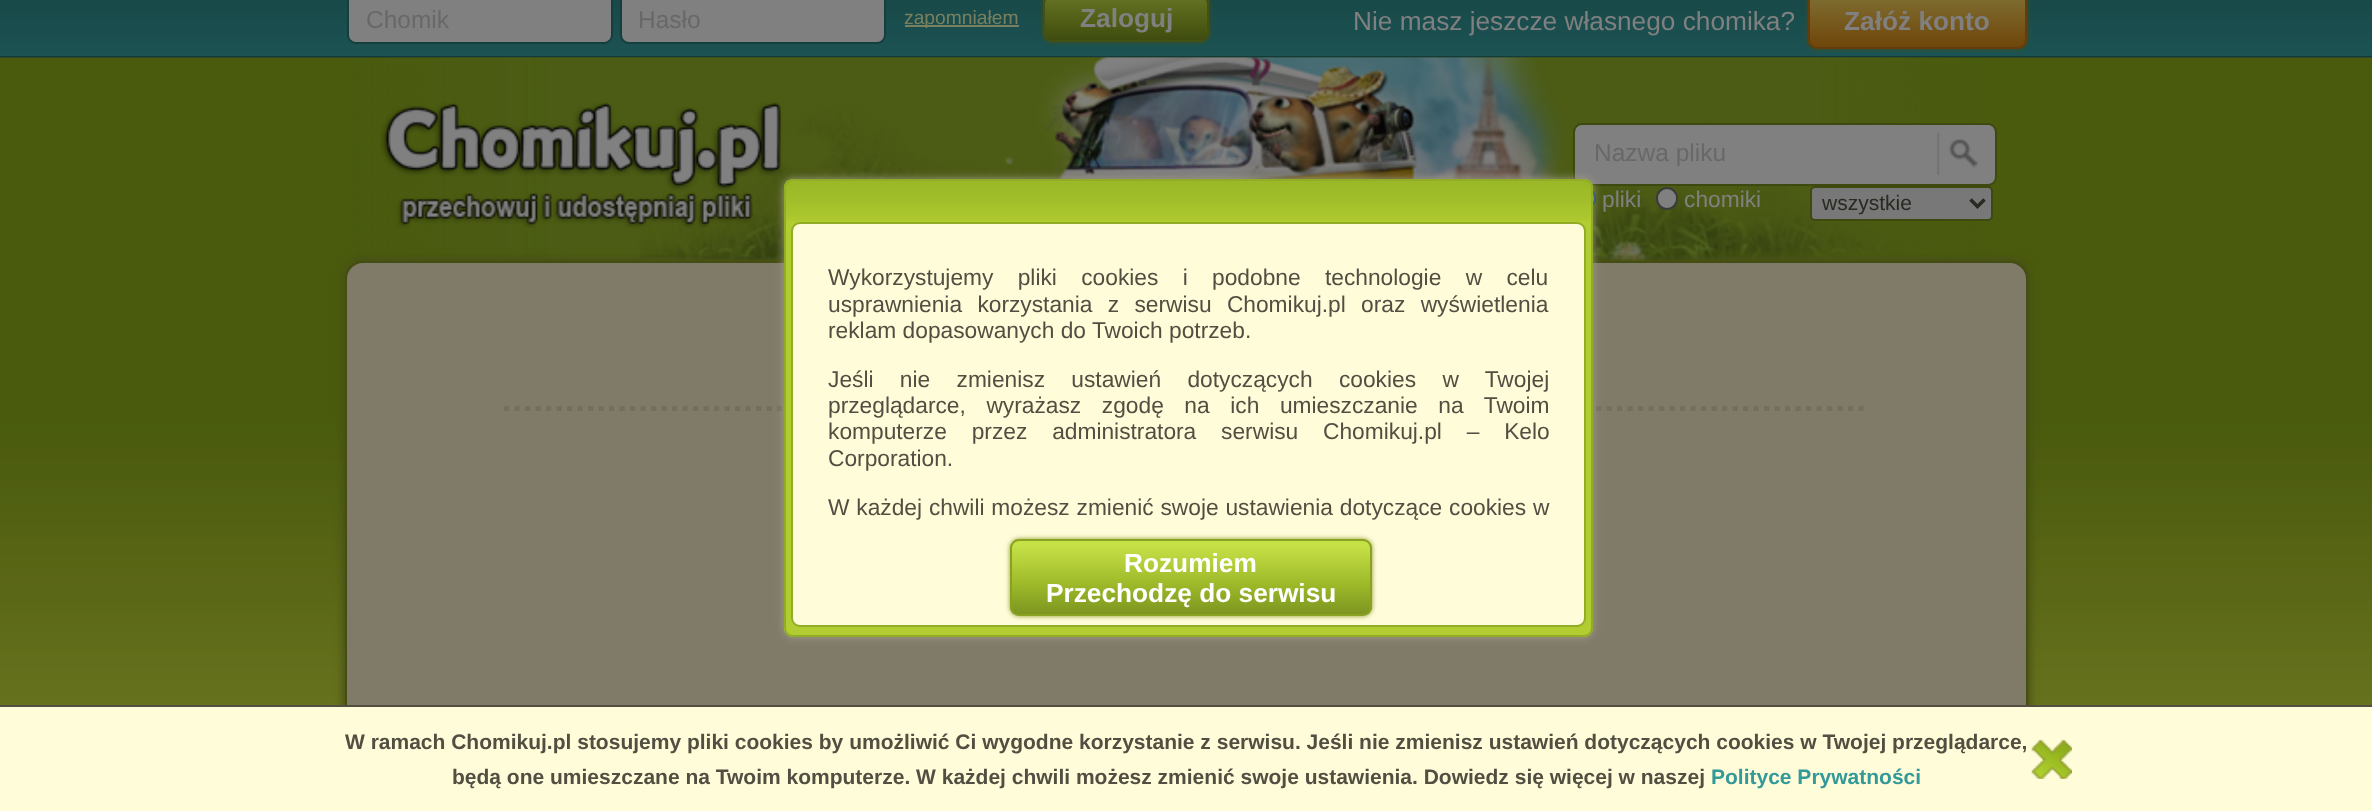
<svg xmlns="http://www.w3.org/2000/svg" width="2372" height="811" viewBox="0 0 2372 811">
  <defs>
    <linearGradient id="g1" gradientUnits="userSpaceOnUse" x1="1187" y1="-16" x2="1187" y2="56"><stop offset="0" stop-color="#184646"/><stop offset="1" stop-color="#1c5353"/></linearGradient>
    <filter id="blur1" x="-50%" y="-200%" width="200%" height="500%"><feGaussianBlur stdDeviation="2.5"/></filter>
    <clipPath id="clip1"><rect x="1043" y="-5" width="166" height="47" rx="9"/></clipPath>
    <linearGradient id="g2" gradientUnits="userSpaceOnUse" x1="1126" y1="-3.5" x2="1126" y2="40"><stop offset="0" stop-color="#637123"/><stop offset="0.06" stop-color="#637123"/><stop offset="0.61" stop-color="#4e5c15"/><stop offset="0.83" stop-color="#455312"/><stop offset="1" stop-color="#3f4b10"/></linearGradient>
    <clipPath id="clip2"><rect x="1808" y="-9" width="219" height="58" rx="9"/></clipPath>
    <linearGradient id="g3" gradientUnits="userSpaceOnUse" x1="1917" y1="-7" x2="1917" y2="47"><stop offset="0" stop-color="#807034"/><stop offset="1" stop-color="#6f460a"/></linearGradient>
    <filter id="blur2" x="-50%" y="-200%" width="200%" height="500%"><feGaussianBlur stdDeviation="4.5"/></filter>
    <clipPath id="clip3"><rect x="1010" y="539" width="362" height="77" rx="9"/></clipPath>
    <linearGradient id="g4" gradientUnits="userSpaceOnUse" x1="1191" y1="541" x2="1191" y2="614"><stop offset="0" stop-color="#c6e146"/><stop offset="0.06" stop-color="#c6e146"/><stop offset="0.61" stop-color="#9cb829"/><stop offset="0.83" stop-color="#8aa524"/><stop offset="1" stop-color="#7d9520"/></linearGradient>
  </defs>
  <rect width="100%" height="100%" fill="#ffffff"/>
  <rect x="0" y="0" width="2372" height="56" fill="url(#g1)"/>
  <rect x="0" y="56" width="2372" height="2" fill="#143b3b"/>
  <rect x="348" y="-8" width="264" height="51" rx="8" fill="#808080" stroke="#153e3e" stroke-width="2"/>
  <text x="366" y="28" font-family="Liberation Sans" font-size="24.5" fill="#686868">Chomik</text>
  <rect x="621" y="-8" width="264" height="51" rx="8" fill="#808080" stroke="#153e3e" stroke-width="2"/>
  <text x="638" y="28" font-family="Liberation Sans" font-size="24.5" fill="#686868">Hasło</text>
  <rect x="905" y="25" width="114" height="2" fill="#78805f"/>
  <text x="904" y="24" font-family="Liberation Sans" font-size="19.25" fill="#78805f">zapomniałem</text>
  <rect x="1043" y="-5" width="166" height="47" rx="9" fill="#454d13" filter="url(#blur1)"/>
  <g clip-path="url(#clip1)">
    <rect x="1043" y="0" width="166" height="40" fill="url(#g2)"/>
  </g>
  <rect x="1044" y="-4" width="164" height="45" rx="8" fill="none" stroke="#455112" stroke-width="2"/>
  <text x="1080" y="27" font-family="Liberation Sans" font-size="26.25" font-weight="bold" fill="#808080">Zaloguj</text>
  <text x="1353" y="30" font-family="Liberation Sans" font-size="26.25" fill="#808080">Nie masz jeszcze własnego chomika?</text>
  <image x="0" y="57" width="2372" height="648" href="img1.png"/>
  <rect x="1808" y="-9" width="219" height="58" rx="9" fill="#454d13" filter="url(#blur1)"/>
  <g clip-path="url(#clip2)">
    <rect x="1808" y="0" width="219" height="47" fill="url(#g3)"/>
  </g>
  <rect x="1809" y="-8" width="217" height="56" rx="8" fill="none" stroke="#653c0b" stroke-width="2"/>
  <text x="1844" y="30" font-family="Liberation Sans" font-size="26.25" font-weight="bold" fill="#808080">Załóż konto</text>
  <image x="354" y="57" width="1638" height="204" href="img2.png"/>
  <image x="380" y="102" width="403" height="126" href="img3.png"/>
  <rect x="1574" y="124" width="422" height="61" rx="8" fill="#808080" stroke="#3e4910" stroke-width="2"/>
  <text x="1594" y="161" font-family="Liberation Sans" font-size="24.5" fill="#686868">Nazwa pliku</text>
  <image x="1937" y="132" width="41" height="43" href="img4.png"/>
  <rect x="1811" y="187" width="181" height="33" rx="4" fill="#787878" stroke="#3e4910" stroke-width="2"/>
  <path d="M1970.5 199.5L1977.5 206.5L1984.5 199.5" fill="none" stroke="#292821" stroke-width="3.5"/>
  <text x="1822" y="210" font-family="Liberation Sans" font-size="21" fill="#292821">wszystkie</text>
  <circle cx="1584.5" cy="198.5" r="10.5" fill="#808080" stroke="#003b80" stroke-width="2"/>
  <text x="1602" y="207" font-family="Liberation Sans" font-size="22.75" fill="#808080">pliki</text>
  <rect x="1657" y="188" width="20" height="21" rx="10" fill="#808080" stroke="#3b3b3b" stroke-width="2"/>
  <text x="1684" y="207" font-family="Liberation Sans" font-size="22.75" fill="#808080">chomiki</text>
  <rect x="343" y="259" width="1687" height="488" rx="19" fill="#454d13" filter="url(#blur2)"/>
  <rect x="346" y="262" width="1681" height="483" rx="17" fill="#807b69" stroke="#444d13" stroke-width="2"/>
  <path d="M504 408.5H1869" fill="none" stroke="#736f5e" stroke-width="5.2" stroke-dasharray="5.25 5.25"/>
  <rect x="784" y="179" width="809" height="458" rx="9" fill="#a39d85" filter="url(#blur2)"/>
  <rect x="784" y="179" width="809" height="458" rx="9" fill="#b2cd31"/>
  <image x="784" y="179" width="809" height="42" href="img5.png"/>
  <rect x="785" y="180" width="807" height="456" rx="8" fill="none" stroke="#91ac26" stroke-width="2"/>
  <rect x="792" y="223" width="793" height="403" rx="8" fill="#fffcda" stroke="#91ac26" stroke-width="2"/>
  <text x="828" y="285" word-spacing="18" font-family="Liberation Sans" font-size="22.75" fill="#524f42">Wykorzystujemy pliki cookies i podobne technologie w celu</text>
  <text x="828" y="312" word-spacing="9" font-family="Liberation Sans" font-size="22.75" fill="#524f42">usprawnienia korzystania z serwisu Chomikuj.pl oraz wyświetlenia</text>
  <text x="828" y="338" font-family="Liberation Sans" font-size="22.75" fill="#524f42">reklam dopasowanych do Twoich potrzeb.</text>
  <text x="828" y="387" word-spacing="20" font-family="Liberation Sans" font-size="22.75" fill="#524f42">Jeśli nie zmienisz ustawień dotyczących cookies w Twojej</text>
  <text x="828" y="413" word-spacing="14.25" font-family="Liberation Sans" font-size="22.75" fill="#524f42">przeglądarce, wyrażasz zgodę na ich umieszczanie na Twoim</text>
  <text x="828" y="439" word-spacing="18.5" font-family="Liberation Sans" font-size="22.75" fill="#524f42">komputerze przez administratora serwisu Chomikuj.pl – Kelo</text>
  <text x="828" y="466" font-family="Liberation Sans" font-size="22.75" fill="#524f42">Corporation.</text>
  <text x="828" y="515" word-spacing="0.5" font-family="Liberation Sans" font-size="22.75" fill="#524f42">W każdej chwili możesz zmienić swoje ustawienia dotyczące cookies w</text>
  <rect x="1010" y="539" width="362" height="77" rx="9" fill="#899926" filter="url(#blur1)"/>
  <g clip-path="url(#clip3)">
    <rect x="1010" y="541" width="362" height="73" fill="url(#g4)"/>
  </g>
  <rect x="1011" y="540" width="360" height="75" rx="8" fill="none" stroke="#89a224" stroke-width="2"/>
  <text x="1124" y="572" font-family="Liberation Sans" font-size="26.25" font-weight="bold" fill="#ffffff">Rozumiem</text>
  <text x="1046" y="602" font-family="Liberation Sans" font-size="26.25" font-weight="bold" fill="#ffffff">Przechodzę do serwisu</text>
  <rect x="0" y="707" width="2372" height="104" fill="#fffcda"/>
  <rect x="0" y="705" width="2372" height="2" fill="#524f42"/>
  <text x="345" y="749" font-family="Liberation Sans" font-size="21" font-weight="bold" fill="#524f42">W ramach Chomikuj.pl stosujemy pliki cookies by umożliwić Ci wygodne korzystanie z serwisu. Jeśli nie zmienisz ustawień dotyczących cookies w Twojej przeglądarce,</text>
  <image x="2031" y="739" width="41" height="40" href="img6.png"/>
  <text x="452" y="784" font-family="Liberation Sans" font-size="21" font-weight="bold" fill="#524f42">będą one umieszczane na Twoim komputerze. W każdej chwili możesz zmienić swoje ustawienia. Dowiedz się więcej w naszej</text>
  <text x="1711" y="784" font-family="Liberation Sans" font-size="21" font-weight="bold" fill="#339999">Polityce Prywatności</text>
</svg>
